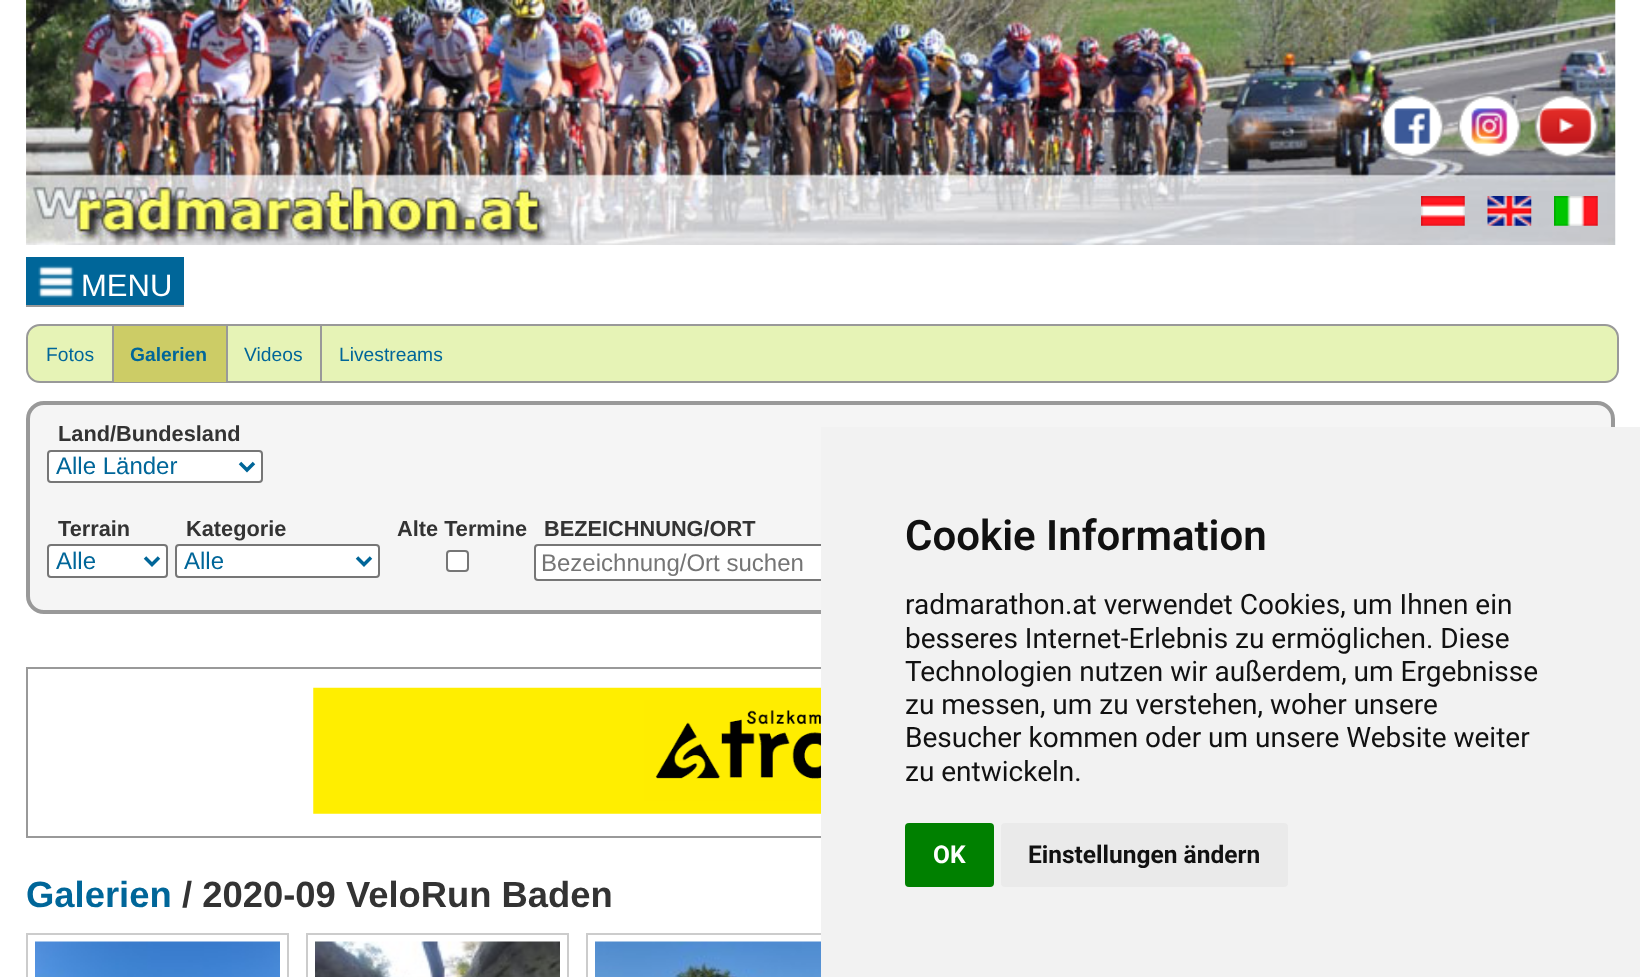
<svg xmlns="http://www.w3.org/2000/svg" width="1640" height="977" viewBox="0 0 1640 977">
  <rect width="100%" height="100%" fill="#ffffff"/>
  <image x="26" y="0" width="1590" height="245" href="img1.png"/>
  <image x="26" y="0" width="526" height="245" href="img2.png"/>
  <image x="1421" y="196" width="44" height="30" href="img3.png"/>
  <image x="1487" y="196" width="45" height="30" href="img4.png"/>
  <image x="1554" y="196" width="44" height="30" href="img5.png"/>
  <image x="1380" y="94" width="64" height="64" href="img6.png"/>
  <image x="1457" y="94" width="64" height="64" href="img7.png"/>
  <image x="1534" y="94" width="64" height="64" href="img8.png"/>
  <rect x="26" y="257" width="158" height="48" fill="#006699"/>
  <rect x="26" y="305" width="158" height="2" fill="#999999"/>
  <image x="38" y="265" width="36" height="33" href="img9.png"/>
  <text x="81" y="296" font-family="Liberation Sans" font-size="31" fill="#ffffff">MENU</text>
  <rect x="27" y="325" width="1591" height="57" rx="13" fill="#e6f3b6" stroke="#999999" stroke-width="2"/>
  <rect x="112" y="326" width="2" height="56" fill="#999999"/>
  <text x="46" y="361" font-family="Liberation Sans" font-size="19.25" fill="#006699">Fotos</text>
  <rect x="114" y="326" width="112" height="56" fill="#cccc66"/>
  <rect x="226" y="326" width="2" height="56" fill="#999999"/>
  <text x="130" y="361" font-family="Liberation Sans" font-size="19.25" font-weight="bold" fill="#006699">Galerien</text>
  <rect x="320" y="326" width="2" height="56" fill="#999999"/>
  <text x="244" y="361" font-family="Liberation Sans" font-size="19.25" fill="#006699">Videos</text>
  <text x="339" y="361" font-family="Liberation Sans" font-size="19.25" fill="#006699">Livestreams</text>
  <rect x="28" y="403" width="1585" height="209" rx="16" fill="#f5f5f5" stroke="#999999" stroke-width="4"/>
  <text x="58" y="441" font-family="Liberation Sans" font-size="21.75" font-weight="bold" fill="#333333">Land/Bundesland</text>
  <rect x="48" y="451" width="214" height="31" rx="3" fill="#ffffff" stroke="#767676" stroke-width="2"/>
  <path d="M240 463L247 470L254 463" fill="none" stroke="#006699" stroke-width="3.5"/>
  <text x="56" y="474" font-family="Liberation Sans" font-size="24" fill="#006699">Alle Länder</text>
  <text x="58" y="536" font-family="Liberation Sans" font-size="21.75" font-weight="bold" fill="#333333">Terrain</text>
  <rect x="48" y="545" width="119" height="32" rx="3" fill="#ffffff" stroke="#767676" stroke-width="2"/>
  <path d="M145 557.5L152 564.5L159 557.5" fill="none" stroke="#006699" stroke-width="3.5"/>
  <text x="56" y="569" font-family="Liberation Sans" font-size="24" fill="#006699">Alle</text>
  <text x="186" y="536" font-family="Liberation Sans" font-size="21.75" font-weight="bold" fill="#333333">Kategorie</text>
  <rect x="176" y="545" width="203" height="32" rx="3" fill="#ffffff" stroke="#767676" stroke-width="2"/>
  <path d="M357 557.5L364 564.5L371 557.5" fill="none" stroke="#006699" stroke-width="3.5"/>
  <text x="184" y="569" font-family="Liberation Sans" font-size="24" fill="#006699">Alle</text>
  <text x="397" y="536" font-family="Liberation Sans" font-size="21.75" font-weight="bold" fill="#333333">Alte Termine</text>
  <rect x="447" y="551" width="21" height="20" rx="3" fill="#ffffff" stroke="#767676" stroke-width="2"/>
  <text x="544" y="536" font-family="Liberation Sans" font-size="21.75" font-weight="bold" fill="#333333">BEZEICHNUNG/ORT</text>
  <rect x="535" y="545" width="327" height="35" rx="3" fill="#ffffff" stroke="#767676" stroke-width="2"/>
  <text x="541" y="571" font-family="Liberation Sans" font-size="24" fill="#757575">Bezeichnung/Ort suchen</text>
  <rect x="27" y="668" width="1587" height="169" fill="none" stroke="#999999" stroke-width="2"/>
  <image x="313" y="687" width="508" height="127" href="img10.png"/>
  <text x="26" y="907" font-family="Liberation Sans" font-size="36.4" font-weight="bold" fill="#006699">Galerien</text>
  <text x="182" y="907" font-family="Liberation Sans" font-size="36.4" font-weight="bold" fill="#333333">/ 2020-09 VeloRun Baden</text>
  <rect x="27" y="934" width="261" height="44" fill="none" stroke="#cccccc" stroke-width="2"/>
  <image x="35" y="941" width="245" height="36" href="img11.png"/>
  <rect x="307" y="934" width="261" height="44" fill="none" stroke="#cccccc" stroke-width="2"/>
  <image x="315" y="941" width="245" height="36" href="img12.png"/>
  <rect x="587" y="934" width="261" height="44" fill="none" stroke="#cccccc" stroke-width="2"/>
  <image x="595" y="941" width="226" height="36" href="img13.png"/>
  <rect x="821" y="427" width="819" height="550" fill="#f2f2f2"/>
  <text x="905" y="550" font-family="Roboto" font-size="42" font-weight="600" fill="#111111">Cookie Information</text>
  <text x="905" y="614" font-family="Roboto" font-size="28" fill="#111111">radmarathon.at verwendet Cookies, um Ihnen ein</text>
  <text x="905" y="648" font-family="Roboto" font-size="28" fill="#111111">besseres Internet-Erlebnis zu ermöglichen. Diese</text>
  <text x="905" y="681" font-family="Roboto" font-size="28" fill="#111111">Technologien nutzen wir außerdem, um Ergebnisse</text>
  <text x="905" y="714" font-family="Roboto" font-size="28" fill="#111111">zu messen, um zu verstehen, woher unsere</text>
  <text x="905" y="747" font-family="Roboto" font-size="28" fill="#111111">Besucher kommen oder um unsere Website weiter</text>
  <text x="905" y="781" font-family="Roboto" font-size="28" fill="#111111">zu entwickeln.</text>
  <rect x="905" y="823" width="89" height="64" rx="4" fill="#008000"/>
  <text x="933" y="863" font-family="Roboto" font-size="24.5" font-weight="bold" fill="#ffffff">OK</text>
  <rect x="1001" y="823" width="287" height="64" rx="4" fill="#eaeaea"/>
  <text x="1028" y="863" font-family="Roboto" font-size="24.5" font-weight="bold" fill="#111111">Einstellungen ändern</text>
</svg>
